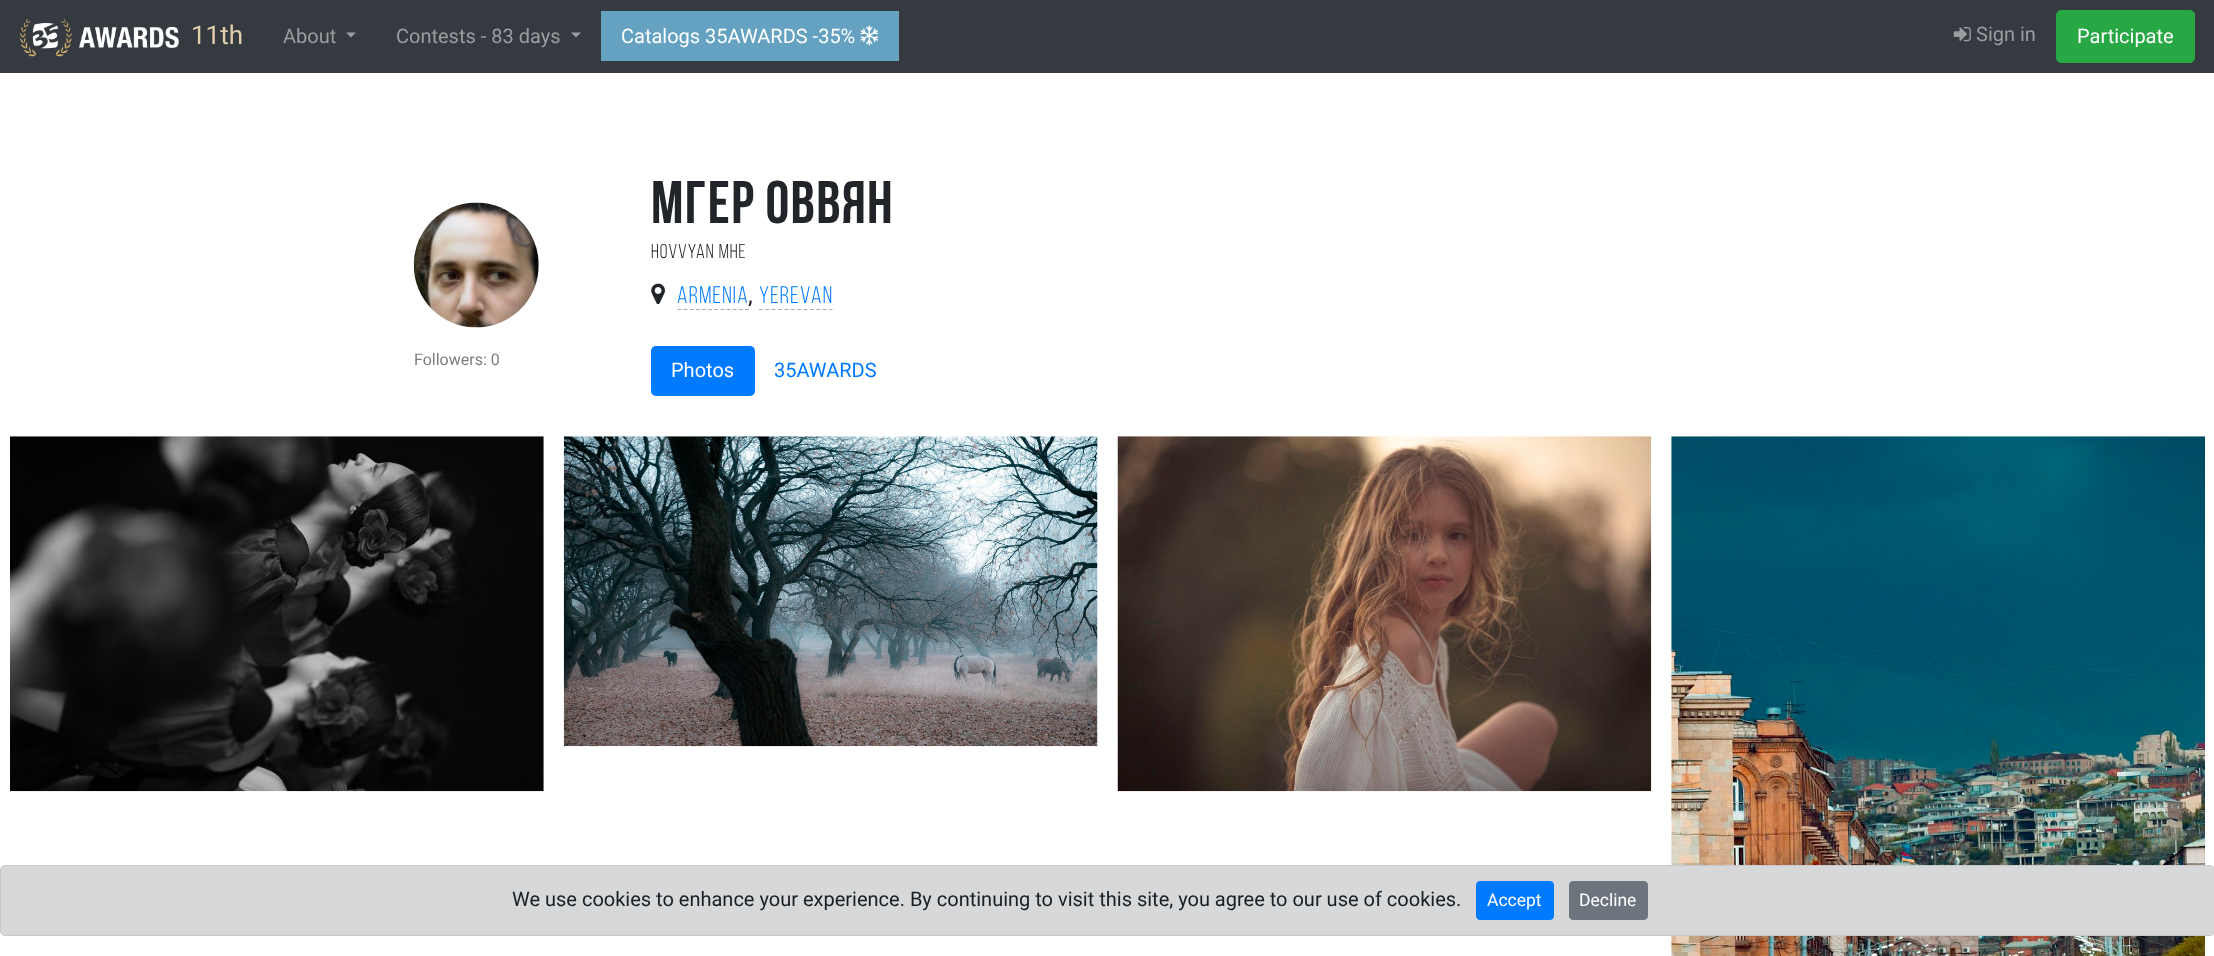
<svg xmlns="http://www.w3.org/2000/svg" width="2214" height="956" viewBox="0 0 2214 956">
  <rect width="100%" height="100%" fill="#ffffff"/>
  <rect x="0" y="0" width="2214" height="73" fill="#343a40"/>
  <image x="20" y="18" width="159" height="39" href="img1.png"/>
  <text x="191" y="44" font-family="Roboto" font-size="26" fill="#e1cfab">11th</text>
  <text x="283" y="43" font-family="Roboto" font-size="20" fill="#9a9da0">About</text>
  <path d="M346 32.5H356L351 37.5Z" fill="#9a9da0"/>
  <text x="396" y="43" font-family="Roboto" font-size="20" fill="#9a9da0">Contests - 83 days</text>
  <path d="M571 32.5H581L576 37.5Z" fill="#9a9da0"/>
  <rect x="601" y="11" width="298" height="50" fill="#65a2c2"/>
  <text x="621" y="43" font-family="Roboto" font-size="20" fill="#ffffff">Catalogs 35AWARDS -35%</text>
  <image x="860" y="25" width="18" height="21" href="img2.png"/>
  <image x="1953" y="26" width="18" height="16" href="img3.png"/>
  <text x="1976" y="41" font-family="Roboto" font-size="20" fill="#9a9da0">Sign in</text>
  <rect x="2056.5" y="10.5" width="138" height="52" rx="4.5" fill="#28a745" stroke="#28a745"/>
  <text x="2077" y="43" font-family="Roboto" font-size="20" fill="#ffffff">Participate</text>
  <image x="413" y="202" width="126" height="126" href="img4.png"/>
  <text x="414" y="365" font-family="Roboto" font-size="16" fill="#7a7c7f">Followers: 0</text>
  <text x="651" y="223" font-family="Bebas Neue" font-size="60" font-weight="bold" letter-spacing="1.25" fill="#212529">МГЕР ОВВЯН</text>
  <text x="651" y="258" font-family="Bebas Neue" font-size="20" letter-spacing="1" fill="#212529">Hovvyan Mhe</text>
  <image x="651" y="283" width="14" height="22" href="img5.png"/>
  <text x="677" y="303" font-family="Bebas Neue" font-size="24" letter-spacing="1.25" fill="#007bff">Armenia</text>
  <path d="M677.5 309.5H749" fill="none" stroke="#aaaaaa" stroke-width="1.2" stroke-dasharray="3.75 2.39"/>
  <text x="748" y="303" font-family="Roboto" font-size="24" fill="#212529">,</text>
  <text x="759" y="303" font-family="Bebas Neue" font-size="24" letter-spacing="1.25" fill="#007bff">Yerevan</text>
  <path d="M759 309.5H832.5" fill="none" stroke="#aaaaaa" stroke-width="1.2" stroke-dasharray="3.75 2.61"/>
  <rect x="651" y="346" width="104" height="50" rx="5" fill="#007bff"/>
  <text x="671" y="377" font-family="Roboto" font-size="20" fill="#ffffff">Photos</text>
  <text x="774" y="377" font-family="Roboto" font-size="20" fill="#007bff">35AWARDS</text>
  <image x="10" y="436" width="534" height="356" href="img6.png"/>
  <image x="563" y="436" width="535" height="311" href="img7.png"/>
  <image x="1117" y="436" width="535" height="356" href="img8.png"/>
  <image x="1671" y="436" width="534" height="520" href="img9.png"/>
  <rect x="0.5" y="865.5" width="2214" height="70" rx="4.5" fill="#d6d8d9" stroke="#c6c8ca"/>
  <text x="512" y="906" font-family="Roboto" font-size="20" fill="#1b1e21">We use cookies to enhance your experience. By continuing to visit this site, you agree to our use of cookies.</text>
  <rect x="1476.5" y="881.5" width="77" height="38" rx="3.5" fill="#007bff" stroke="#007bff"/>
  <text x="1487" y="906" font-family="Roboto" font-size="17.5" fill="#ffffff">Accept</text>
  <rect x="1569.5" y="881.5" width="78" height="38" rx="3.5" fill="#6c757d" stroke="#6c757d"/>
  <text x="1579" y="906" font-family="Roboto" font-size="17.5" fill="#ffffff">Decline</text>
</svg>
